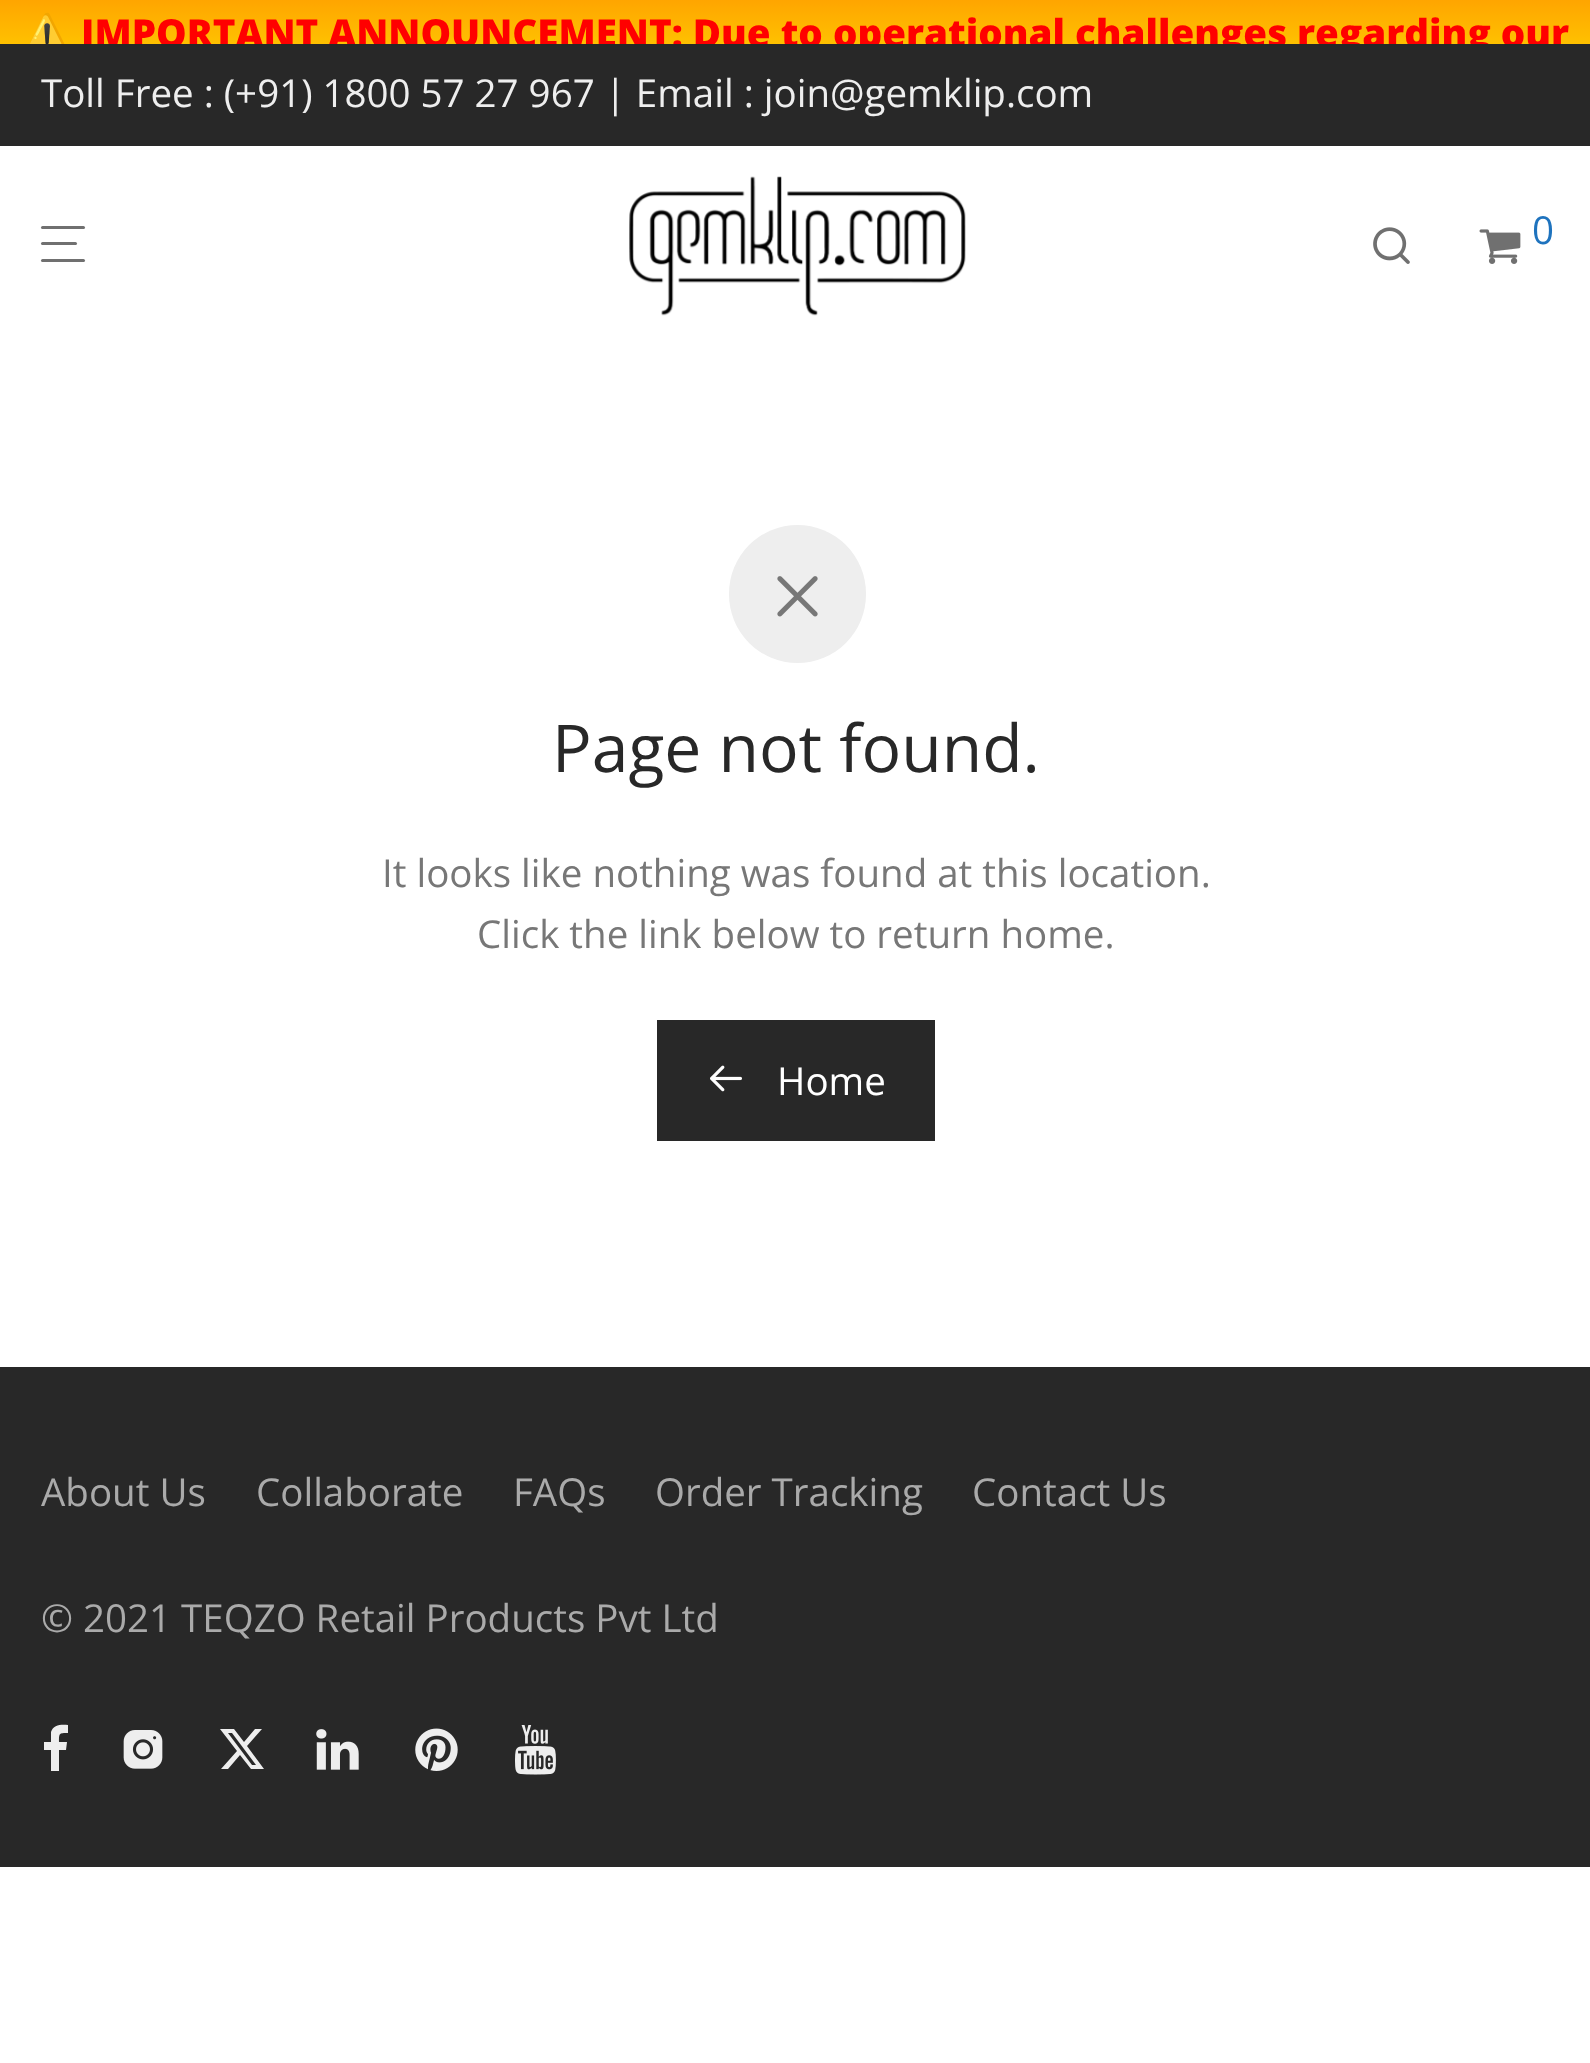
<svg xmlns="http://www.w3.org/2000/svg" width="1590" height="2063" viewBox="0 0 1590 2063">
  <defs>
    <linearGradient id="g1" gradientUnits="userSpaceOnUse" x1="796" y1="0" x2="796" y2="143"><stop offset="0" stop-color="#ffa500"/><stop offset="1" stop-color="#ffff00"/></linearGradient>
    <clipPath id="clip1"><rect x="0" y="0" width="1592" height="44"/></clipPath>
  </defs>
  <rect width="100%" height="100%" fill="#ffffff"/>
  <rect x="0" y="0" width="1590" height="44" fill="url(#g1)"/>
  <g clip-path="url(#clip1)">
    <text x="23" y="47" font-family="Noto Color Emoji" font-size="38.5" font-weight="bold" fill="#ff0000">⚠️</text>
    <text x="81" y="47" font-family="Open Sans" font-size="38.5" font-weight="800" fill="#ff0000">IMPORTANT ANNOUNCEMENT: Due to operational challenges regarding our</text>
  </g>
  <rect x="0" y="44" width="1590" height="102" fill="#282828"/>
  <text x="41" y="107" font-family="Open Sans" font-size="38.5" fill="#eeeeee">Toll Free : (+91) 1800 57 27 967 | Email : join@gemklip.com</text>
  <rect x="41" y="226" width="44" height="3" rx="1.5" fill="#707070"/>
  <rect x="41" y="242" width="36" height="3" rx="1.5" fill="#707070"/>
  <rect x="41" y="259" width="44" height="3" rx="1.5" fill="#707070"/>
  <image x="629" y="176" width="337" height="140" href="img1.png"/>
  <image x="1373" y="227" width="37" height="37" href="img2.png"/>
  <image x="1479" y="229" width="42" height="35" href="img3.png"/>
  <text x="1532" y="244" font-family="Open Sans" font-size="38.5" fill="#1e73be">0</text>
  <rect x="729" y="525" width="137" height="138" rx="68.5" fill="#eeeeee"/>
  <image x="777" y="576" width="41" height="41" href="img4.png"/>
  <text x="552" y="772" font-family="Open Sans" font-size="66" fill="#282828">Page not found.</text>
  <text x="382" y="887" font-family="Open Sans" font-size="38.5" fill="#777777">It looks like nothing was found at this location.</text>
  <text x="477" y="948" font-family="Open Sans" font-size="38.5" fill="#777777">Click the link below to return home.</text>
  <rect x="657" y="1020" width="278" height="121" fill="#282828"/>
  <image x="710" y="1065" width="32" height="27" href="img5.png"/>
  <text x="777" y="1095" font-family="Open Sans" font-size="38.5" fill="#ffffff">Home</text>
  <rect x="0" y="1367" width="1590" height="500" fill="#282828"/>
  <text x="41" y="1506" font-family="Open Sans" font-size="38.5" fill="#aaaaaa">About Us</text>
  <text x="256" y="1506" font-family="Open Sans" font-size="38.5" fill="#aaaaaa">Collaborate</text>
  <text x="513" y="1506" font-family="Open Sans" font-size="38.5" fill="#aaaaaa">FAQs</text>
  <text x="655" y="1506" font-family="Open Sans" font-size="38.5" fill="#aaaaaa">Order Tracking</text>
  <text x="972" y="1506" font-family="Open Sans" font-size="38.5" fill="#aaaaaa">Contact Us</text>
  <text x="41" y="1632" font-family="Open Sans" font-size="38.5" fill="#aaaaaa">© 2021 TEQZO Retail Products Pvt Ltd</text>
  <path d="M44 1750V1742H51V1732C53 1725 61 1724 68 1725V1733C59 1733 59 1733 59 1742H67L66 1750H59V1771H51V1750Z" fill="#eeeeee"/>
  <image x="123" y="1730" width="40" height="39" href="img6.png"/>
  <path d="M255 1729H262L247 1746L264 1769H251L240 1755L228 1769H221L237 1751L220 1729H234L244 1742ZM252 1765H256L232 1733H228Z" fill="#eeeeee"/>
  <image x="316" y="1729" width="43" height="41" href="img7.png"/>
  <image x="415" y="1728" width="43" height="43" href="img8.png"/>
  <image x="515" y="1725" width="41" height="50" href="img9.png"/>
</svg>
